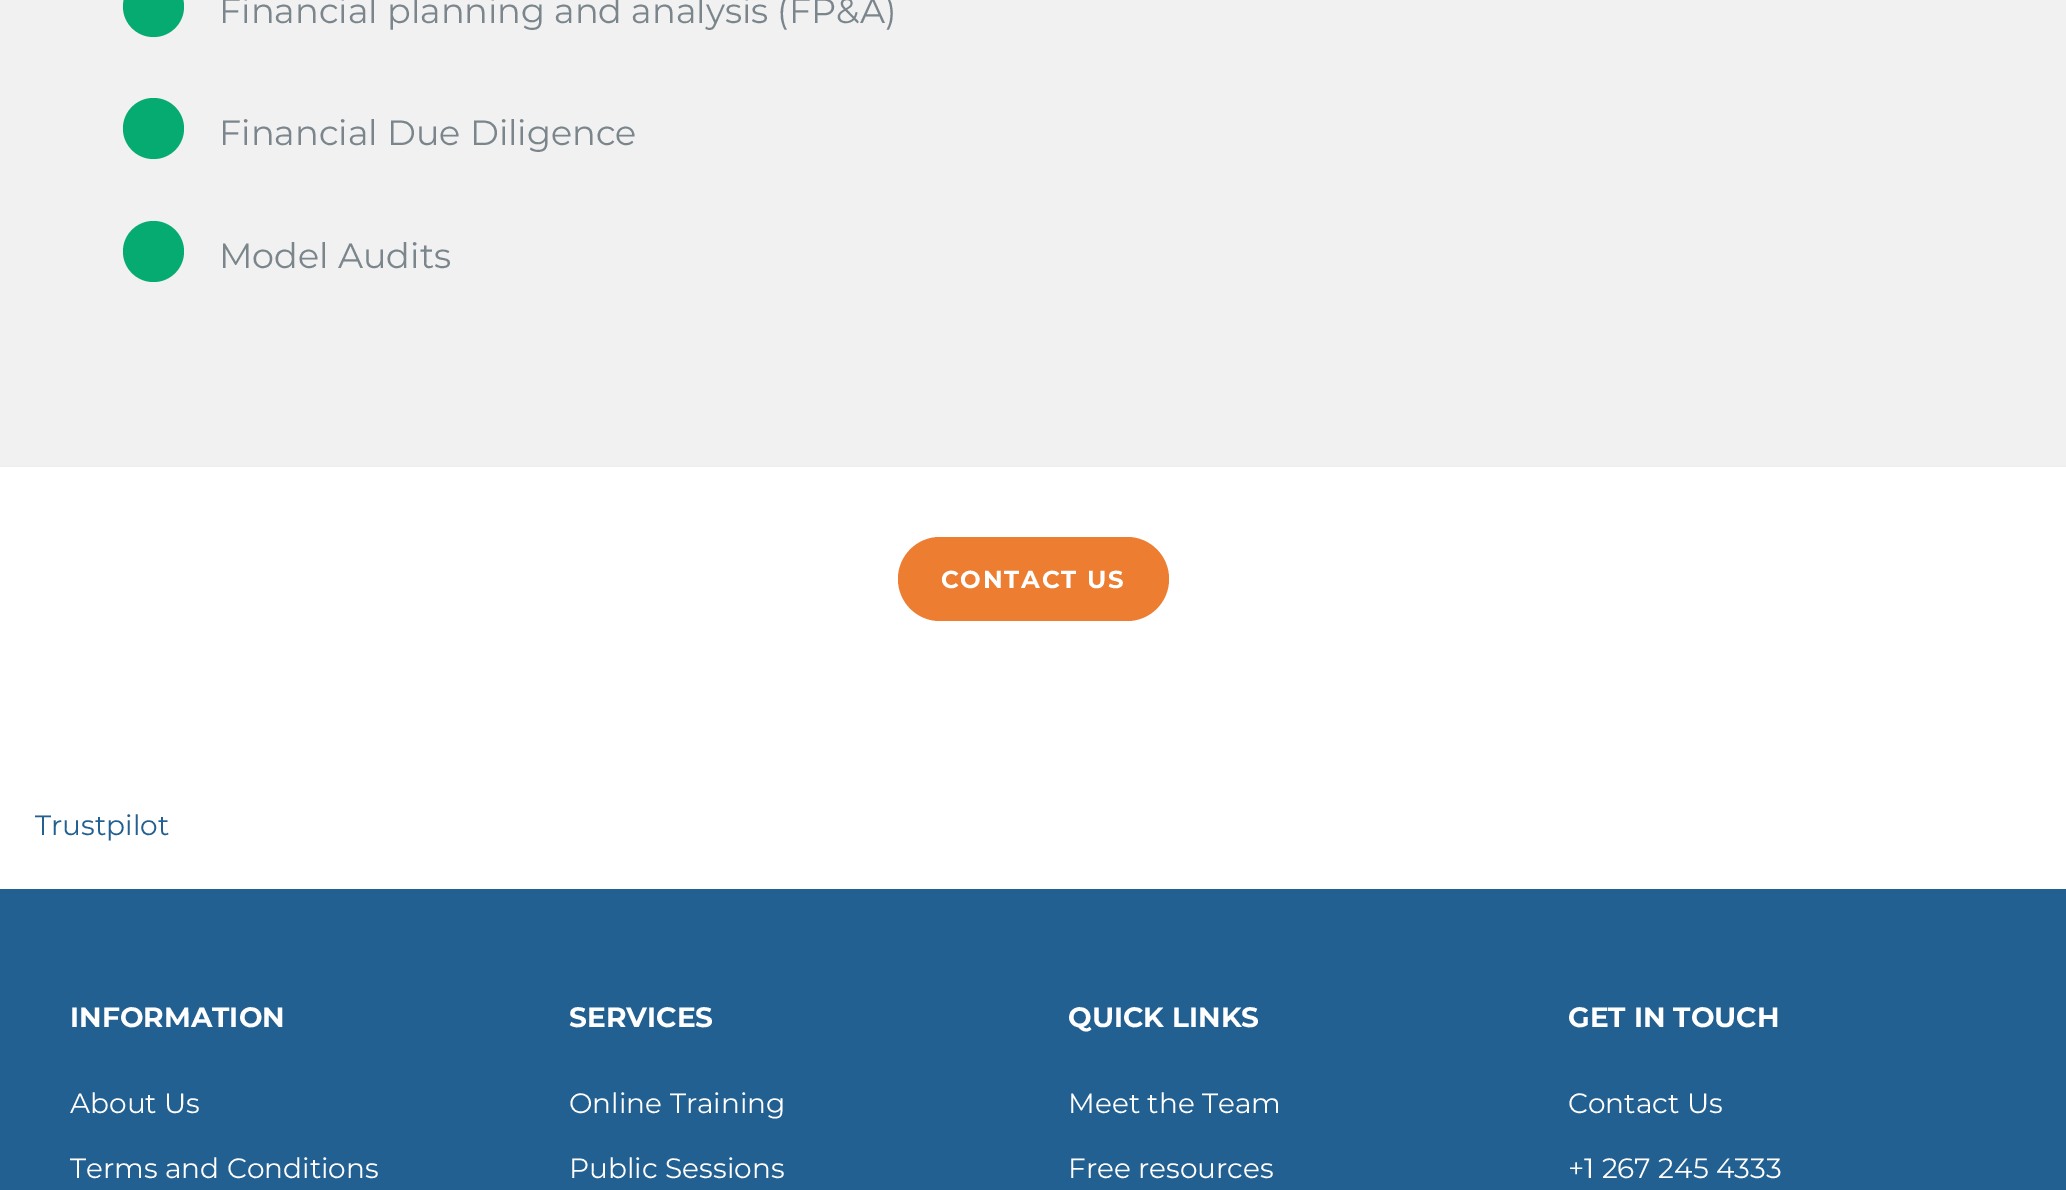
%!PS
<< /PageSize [2066 1190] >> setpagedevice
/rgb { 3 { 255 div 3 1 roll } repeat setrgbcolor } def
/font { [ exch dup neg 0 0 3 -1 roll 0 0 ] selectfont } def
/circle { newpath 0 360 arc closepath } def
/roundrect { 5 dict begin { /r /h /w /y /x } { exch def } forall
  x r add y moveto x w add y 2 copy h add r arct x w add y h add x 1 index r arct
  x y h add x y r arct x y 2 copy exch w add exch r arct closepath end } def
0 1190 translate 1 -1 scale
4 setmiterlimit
255 255 255 rgb
0 0 2066 1190 rectfill
241 241 241 rgb
0 0 2066 466 rectfill
5 171 112 rgb
153.5 6.5 30.5 circle fill
153.5 128.5 30.5 circle fill
153.5 251.5 30.5 circle fill
238 238 238 rgb
0 466 2066 1 rectfill
237 125 49 rgb
898 537 271 84 42 roundrect fill
35 96 146 rgb
0 889 2066 301 rectfill
/Montserrat-Regular 35 font
123 134 140 rgb
[
  [(Financial planning and analysis \(FP&A\)) 219 23]
  [(Financial Due Diligence) 219 145]
  [(Model Audits) 219 268]
] { aload pop moveto show } forall
/Montserrat-Bold 24.5 font
255 255 255 rgb
941 588 moveto 1.75 0 (CONTACT US) ashow
/Montserrat-Regular 28 font
35 96 146 rgb
35 835 moveto (Trustpilot) show
/Montserrat-Bold 28 font
255 255 255 rgb
70 1027 moveto (INFORMATION) show
/Montserrat-Regular 28 font
70 1113 moveto (About Us) show
70 1178 moveto (Terms and Conditions) show
/Montserrat-Bold 28 font
569 1027 moveto (SERVICES) show
/Montserrat-Regular 28 font
569 1113 moveto (Online Training) show
569 1178 moveto (Public Sessions) show
/Montserrat-Bold 28 font
1068 1027 moveto (QUICK LINKS) show
/Montserrat-Regular 28 font
1068 1113 moveto (Meet the Team) show
1068 1178 moveto (Free resources) show
/Montserrat-Bold 28 font
1568 1027 moveto (GET IN TOUCH) show
/Montserrat-Regular 28 font
1568 1113 moveto (Contact Us) show
1568 1178 moveto (+1 267 245 4333) show
showpage
